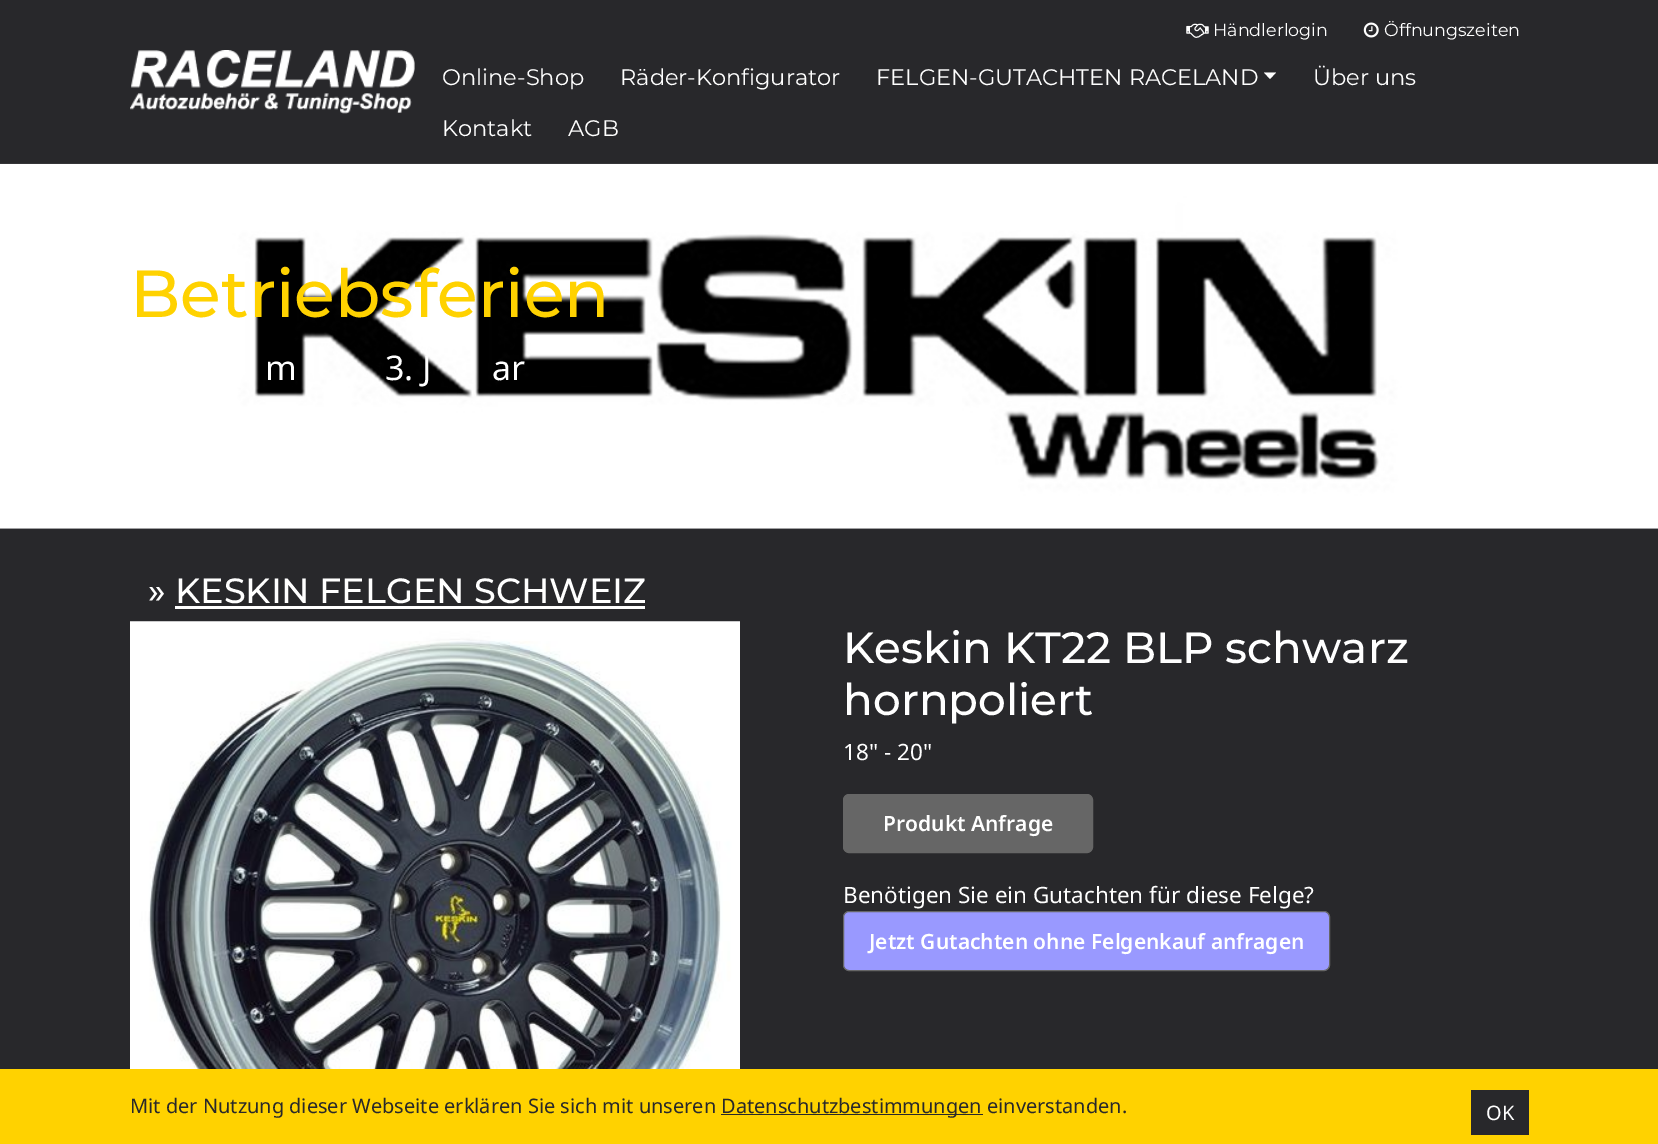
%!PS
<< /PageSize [1658 1144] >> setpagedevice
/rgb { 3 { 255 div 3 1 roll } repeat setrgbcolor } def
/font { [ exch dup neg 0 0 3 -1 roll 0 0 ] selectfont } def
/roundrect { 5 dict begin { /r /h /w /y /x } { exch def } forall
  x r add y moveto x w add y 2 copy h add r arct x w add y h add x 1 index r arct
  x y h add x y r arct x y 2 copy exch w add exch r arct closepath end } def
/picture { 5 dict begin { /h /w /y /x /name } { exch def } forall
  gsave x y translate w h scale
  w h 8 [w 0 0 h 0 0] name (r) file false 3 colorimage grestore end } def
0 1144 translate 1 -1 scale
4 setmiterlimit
40 40 43 rgb
0 0 1658 1144 rectfill
(img/1.rgb) 130 50 285 64 picture
(img/2.rgb) 1186 23 23 15 picture
(img/3.rgb) 1363 22 16 16 picture
255 255 255 rgb
1264 72.5 moveto 1276 72.5 lineto 1270 79 lineto closepath fill
(img/4.rgb) 0 163 1658 366 picture
175 606 470 3 rectfill
(img/5.rgb) 130 621 610 448 picture
102 102 102 rgb
843.5 794.5 249 58 5.5 roundrect gsave fill grestore
stroke
153 153 255 rgb
843.5 911.5 486 59 5.5 roundrect gsave fill grestore
102 102 102 rgb
stroke
[
  [0 1069 1658 75 255 210 0]
  [721 1114 262 1 40 40 43]
  [1471 1090 58 45 40 40 43]
] { aload pop rgb rectfill } forall
/Montserrat-Regular 17.5 font
255 255 255 rgb
1213 36 moveto (Händlerlogin) show
1384 36 moveto (Öffnungszeiten) show
/Montserrat-Regular 22.5 font
[
  [(Online-Shop) 442 85]
  [(Räder-Konfigurator) 620 85]
  [(FELGEN-GUTACHTEN RACELAND) 876 85]
  [(Über uns) 1313 85]
  [(Kontakt) 442 136]
  [(AGB) 568 136]
] { aload pop moveto show } forall
/Montserrat-Medium 66.5 font
255 210 0 rgb
130 317 moveto (Betriebsferien) show
/NotoSans-Regular 34 font
255 255 255 rgb
[
  [(m) 265 380]
  [(3. J) 385 380]
  [(ar) 492 380]
] { aload pop moveto show } forall
/Montserrat-Medium 35 font
148 603 moveto (» KESKIN FELGEN SCHWEIZ) show
/Montserrat-Medium 43.75 font
843 663 moveto (Keskin KT22 BLP schwarz) show
843 715 moveto (hornpoliert) show
/NotoSans-Regular 22.5 font
843 760 moveto (18" - 20") show
/NotoSans-SemiBold 21 font
883 831 moveto (Produkt Anfrage) show
/NotoSans-Regular 22.5 font
843 903 moveto (Benötigen Sie ein Gutachten für diese Felge?) show
/NotoSans-SemiBold 21 font
869 949 moveto (Jetzt Gutachten ohne Felgenkauf anfragen) show
/NotoSans-Regular 20 font
40 40 43 rgb
130 1113 moveto (Mit der Nutzung dieser Webseite erklären Sie sich mit unseren) show
721 1113 moveto (Datenschutzbestimmungen einverstanden.) show
255 255 255 rgb
1486 1120 moveto (OK) show
showpage
